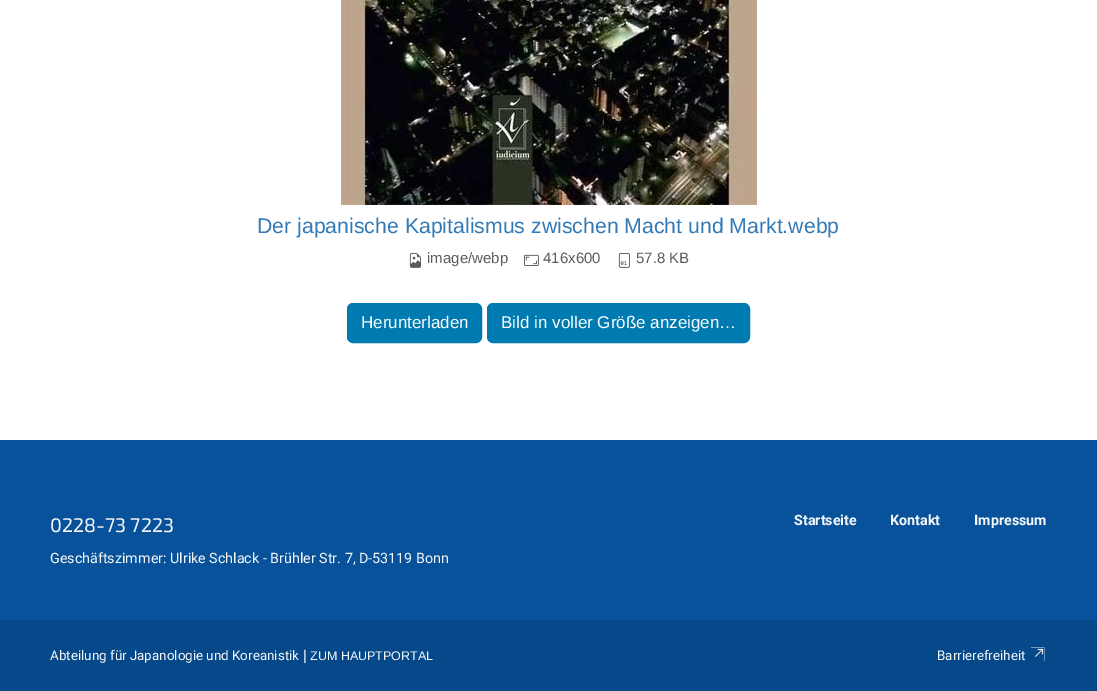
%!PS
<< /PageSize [1097 691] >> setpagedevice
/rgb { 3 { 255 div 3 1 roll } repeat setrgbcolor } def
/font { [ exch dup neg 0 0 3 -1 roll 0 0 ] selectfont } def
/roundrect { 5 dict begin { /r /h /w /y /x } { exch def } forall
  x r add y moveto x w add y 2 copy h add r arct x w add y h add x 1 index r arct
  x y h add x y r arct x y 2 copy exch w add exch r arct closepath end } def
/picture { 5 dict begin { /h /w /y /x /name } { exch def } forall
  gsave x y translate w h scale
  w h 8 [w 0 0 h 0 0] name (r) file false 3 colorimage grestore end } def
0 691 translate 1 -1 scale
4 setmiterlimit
255 255 255 rgb
0 0 1097 691 rectfill
(img/1.rgb) 341 0 416 205 picture
(img/2.rgb) 409 253 12 15 picture
(img/3.rgb) 524 254 15 12 picture
(img/4.rgb) 618 253 12 15 picture
0 123 177 rgb
347.5 303.5 134 39 5.5 roundrect gsave fill grestore
stroke
487.5 303.5 262 39 5.5 roundrect gsave fill grestore
stroke
7 82 154 rgb
0 440 1097 180 rectfill
6 73 138 rgb
0 620 1097 71 rectfill
(img/5.rgb) 1031 647 14 14 picture
/LiberationSans-Regular 21.25 font
51 122 183 rgb
257 233 moveto (Der japanische Kapitalismus zwischen Macht und Markt.webp) show
/LiberationSans-Regular 15 font
89 92 95 rgb
[
  [(image/webp) 427 263]
  [(416x600) 543 263]
  [(57.8 KB) 636 263]
] { aload pop moveto show } forall
/LiberationSans-Regular 17 font
255 255 255 rgb
361 328 moveto (Herunterladen) show
501 328 moveto (Bild in voller Größe anzeigen…) show
/Exo2-Regular 19.75 font
246 247 249 rgb
50 532 moveto (0228-73 7223) show
/Roboto-Regular 14.3 font
50 563 moveto (Geschäftszimmer: Ulrike Schlack - Brühler Str. 7, D-53119 Bonn) show
/Roboto-Bold 14.3 font
[
  [(Startseite) 794 525]
  [(Kontakt) 890 525]
  [(Impressum) 974 525]
] { aload pop moveto show } forall
/Roboto-Regular 13.4 font
50 660 moveto (Abteilung für Japanologie und Koreanistik) show
/LiberationSans-Regular 14 font
303 660 moveto (|) show
/LiberationSans-Regular 12.5 font
310 660 moveto (ZUM HAUPTPORTAL) show
/Roboto-Regular 13.4 font
937 660 moveto (Barrierefreiheit) show
showpage
